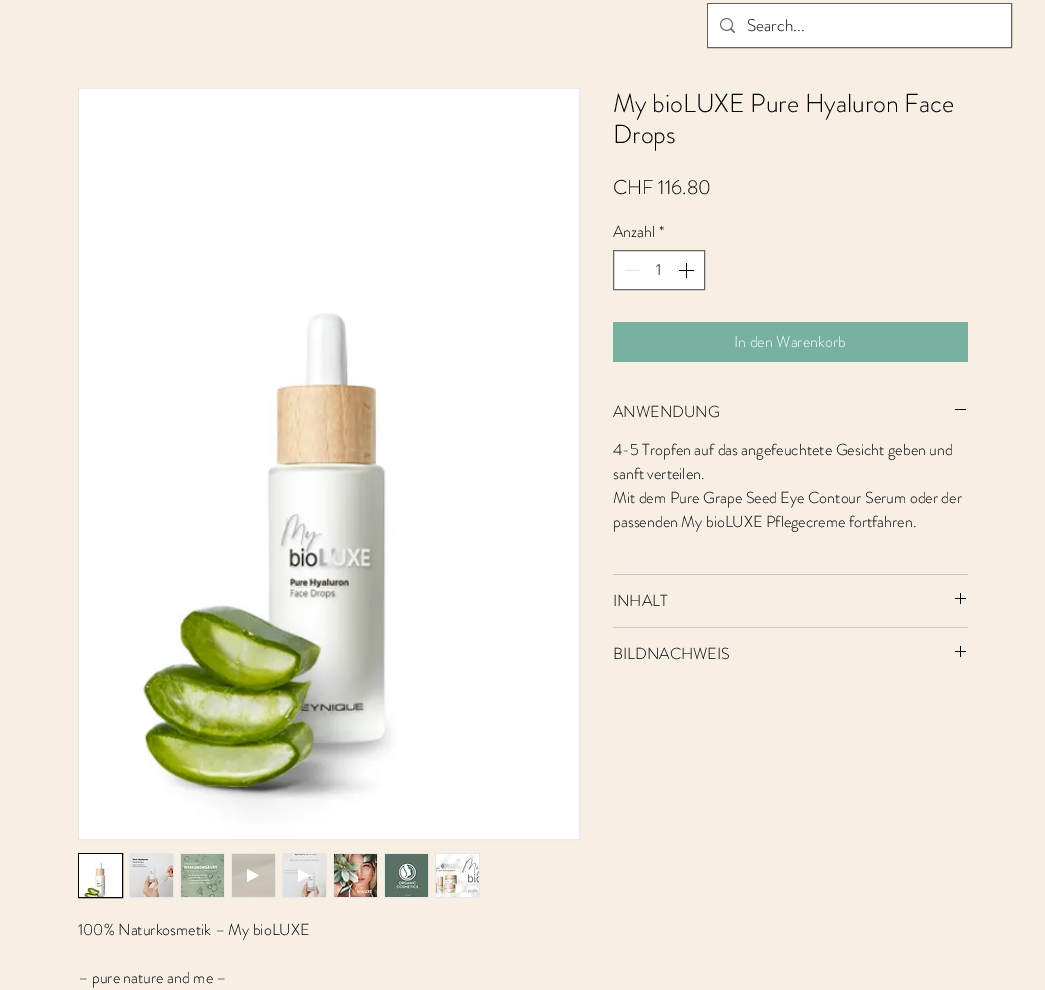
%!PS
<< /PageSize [1045 990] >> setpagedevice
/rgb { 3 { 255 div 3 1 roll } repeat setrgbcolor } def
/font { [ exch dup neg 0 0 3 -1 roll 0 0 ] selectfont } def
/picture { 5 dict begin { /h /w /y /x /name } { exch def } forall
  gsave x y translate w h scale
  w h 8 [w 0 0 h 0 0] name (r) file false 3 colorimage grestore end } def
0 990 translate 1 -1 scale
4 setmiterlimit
247 239 228 rgb
0 0 1045 990 rectfill
99 96 91 rgb
707.5 3.5 304 44 rectstroke
255 255 255 rgb
708 4 303 43 rectfill
(img/1.rgb) 720 18 15 15 picture
613.5 250.5 moveto 704.5 250.5 lineto 704.5 289.5 lineto 613.5 289.5 lineto closepath gsave fill grestore
102 102 102 rgb
stroke
227 227 227 rgb
625 270 15 1 rectfill
(img/2.rgb) 679 263 15 15 picture
[
  [613 322 355 40 120 177 160]
  [613 574 355 1 199 199 199]
  [955 409 11 1 0 0 0]
  [613 627 355 1 199 199 199]
] { aload pop rgb rectfill } forall
(img/3.rgb) 955 593 11 11 picture
(img/3.rgb) 955 646 11 11 picture
232 230 230 rgb
78.5 88.5 501 751 rectstroke
(img/4.rgb) 79 89 500 750 picture
0 0 0 rgb
78.5 853.5 44 44 rectstroke
(img/5.rgb) 79 854 43 43 picture
232 230 230 rgb
129 853 45 45 rectfill
(img/6.rgb) 130 854 43 43 picture
180 853 45 45 rectfill
(img/7.rgb) 181 854 43 43 picture
231 853 45 45 rectfill
(img/8.rgb) 232 854 43 43 picture
282 853 45 45 rectfill
(img/9.rgb) 283 854 43 43 picture
255 255 255 rgb
247 869 moveto 247 882 lineto 259 875.5 lineto closepath 298 869 moveto 298 882 lineto 310 875.5 lineto closepath fill
232 230 230 rgb
333 853 45 45 rectfill
(img/10.rgb) 334 854 43 43 picture
384 853 45 45 rectfill
(img/11.rgb) 385 854 43 43 picture
435 853 45 45 rectfill
(img/12.rgb) 436 854 43 43 picture
/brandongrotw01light-Light 17 font
0 0 0 rgb
747 31 moveto (Search...) show
/brandongrotw01light-Light 26 font
613 112 moveto (My bioLUXE Pure Hyaluron Face) show
613 143 moveto (Drops) show
/brandongrotw01light-Light 20 font
613 194 moveto (CHF 116.80) show
/brandongrotw01light-Light 16 font
[
  [(Anzahl) 613 237]
  [(*) 659 237]
  [(1) 656 275]
] { aload pop moveto show } forall
255 255 255 rgb
734 347 moveto (In den Warenkorb) show
0 0 0 rgb
[
  [(ANWENDUNG) 613 417]
  [(4-5 Tropfen auf das angefeuchtete Gesicht geben und) 613 455]
  [(sanft verteilen.) 613 479]
  [(Mit dem Pure Grape Seed Eye Contour Serum oder der) 613 503]
  [(passenden My bioLUXE Pflegecreme fortfahren.) 613 527]
  [(INHALT) 613 606]
  [(BILDNACHWEIS) 613 659]
  [(100% Naturkosmetik – My bioLUXE) 78 935]
  [(– pure nature and me –) 78 983]
] { aload pop moveto show } forall
showpage
